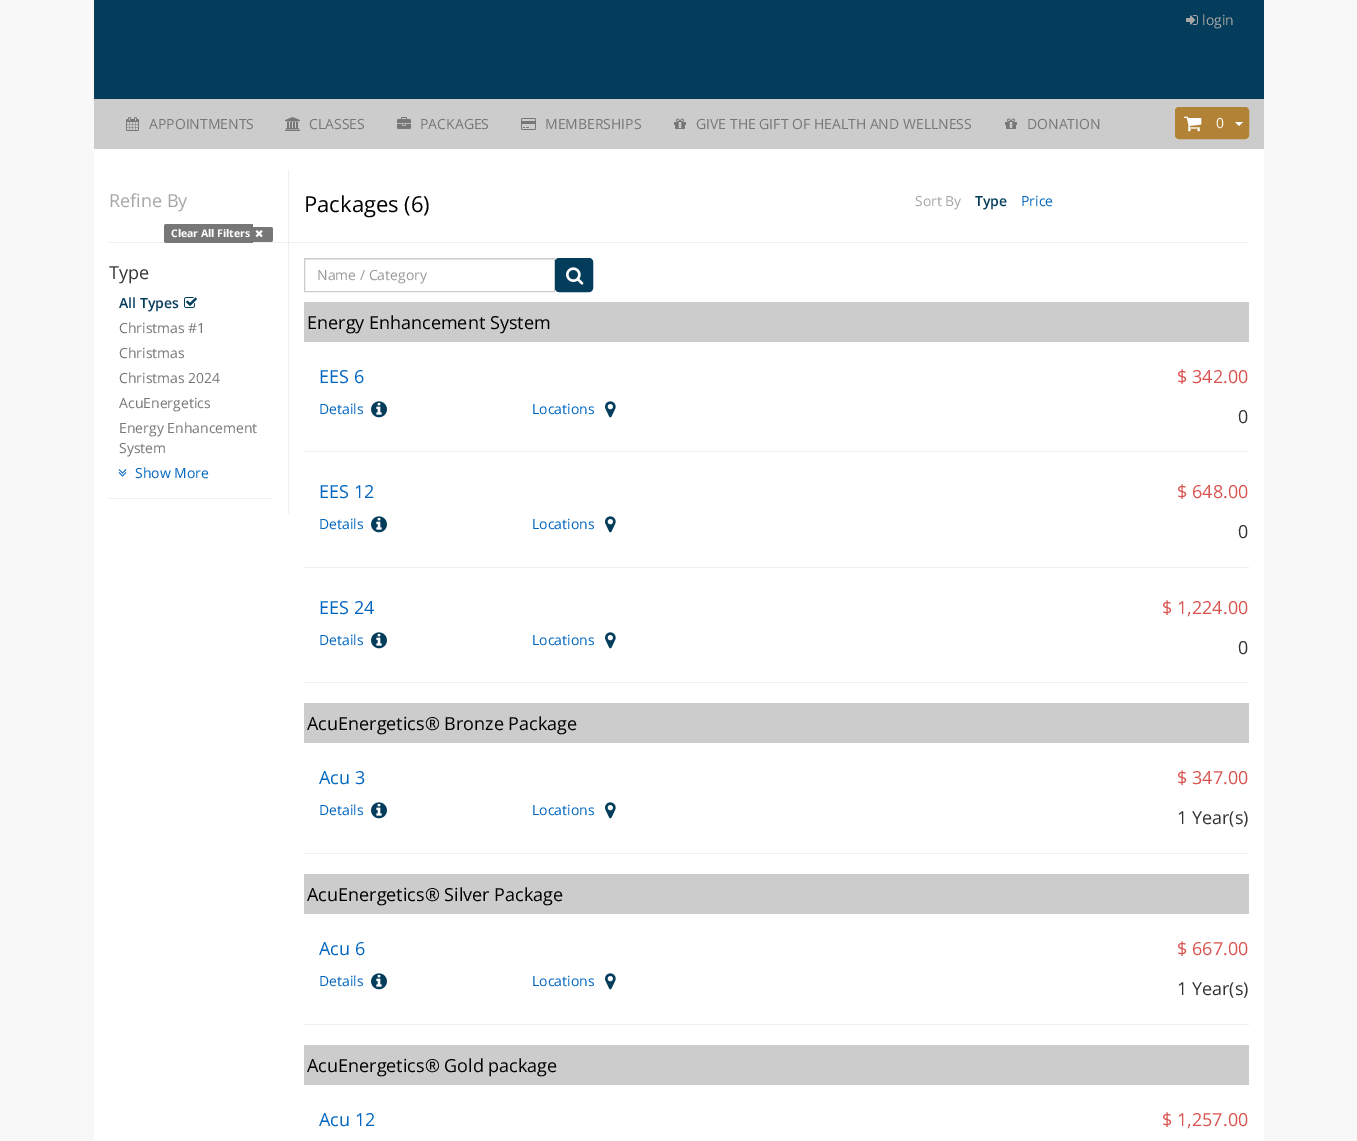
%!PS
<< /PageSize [1357 1141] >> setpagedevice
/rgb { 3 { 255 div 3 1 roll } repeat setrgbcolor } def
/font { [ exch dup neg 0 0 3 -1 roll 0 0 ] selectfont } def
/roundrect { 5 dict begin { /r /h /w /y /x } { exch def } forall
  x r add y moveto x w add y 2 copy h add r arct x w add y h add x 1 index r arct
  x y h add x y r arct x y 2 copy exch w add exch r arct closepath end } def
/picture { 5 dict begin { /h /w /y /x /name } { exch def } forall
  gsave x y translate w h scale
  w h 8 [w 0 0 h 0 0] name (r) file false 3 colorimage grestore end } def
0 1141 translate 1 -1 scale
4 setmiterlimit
248 248 248 rgb
0 0 1357 1141 rectfill
4 60 92 rgb
94 0 1170 99 rectfill
(img/1.rgb) 1186 15 12 10 picture
204 204 204 rgb
94 99 1170 50 rectfill
(img/2.rgb) 126 117 13 14 picture
(img/3.rgb) 285 117 15 14 picture
(img/4.rgb) 397 117 14 12 picture
(img/5.rgb) 521 118 15 12 picture
(img/6.rgb) 674 118 12 11 picture
(img/6.rgb) 1005 118 12 11 picture
178 131 54 rgb
1175.5 107.5 73 31 3.5 roundrect gsave fill grestore
stroke
(img/7.rgb) 1184 116 18 16 picture
255 255 255 rgb
1235 122 moveto 1243 122 lineto 1239 126 lineto closepath fill
[
  [94 149 1170 992 255 255 255]
  [288 170 1 72 238 238 238]
  [109 242 1140 1 238 238 238]
] { aload pop rgb rectfill } forall
119 119 119 rgb
166.5 224 moveto 253 224 lineto 253 243 lineto 166.5 243 lineto 165 243 164 242 164 240.5 curveto 164 226.5 lineto 164 225 165 224 166.5 224 curveto closepath fill
253 227 moveto 270.5 227 lineto 272 227 273 228 273 229.5 curveto 273 239.5 lineto 273 241 272 242 270.5 242 curveto 253 242 lineto closepath fill
(img/8.rgb) 255 230 8 7 picture
238 238 238 rgb
288 243 1 271 rectfill
(img/9.rgb) 184 297 13 11 picture
(img/10.rgb) 118 469 9 8 picture
109 498 164 1 rectfill
236 236 236 rgb
305 259 249 1 rectfill
204 204 204 rgb
304.5 258.5 250 33 rectstroke
4 60 92 rgb
555.5 258.5 37 33 3.5 roundrect gsave fill grestore
stroke
(img/11.rgb) 566 267 18 18 picture
204 204 204 rgb
304 302 945 40 rectfill
(img/12.rgb) 371 401 16 17 picture
(img/13.rgb) 605 401 11 17 picture
238 238 238 rgb
304 451 945 1 rectfill
(img/12.rgb) 371 516 16 17 picture
(img/13.rgb) 605 516 11 17 picture
304 567 945 1 rectfill
(img/12.rgb) 371 632 16 17 picture
(img/13.rgb) 605 632 11 17 picture
304 682 945 1 rectfill
204 204 204 rgb
304 703 945 40 rectfill
(img/12.rgb) 371 802 16 17 picture
(img/13.rgb) 605 802 11 17 picture
238 238 238 rgb
304 853 945 1 rectfill
204 204 204 rgb
304 874 945 40 rectfill
(img/12.rgb) 371 973 16 17 picture
(img/13.rgb) 605 973 11 17 picture
238 238 238 rgb
304 1024 945 1 rectfill
204 204 204 rgb
304 1045 945 40 rectfill
/OpenSans-Regular 14 font
166 166 166 rgb
1202 25 moveto (login) show
119 119 119 rgb
[
  [(APPOINTMENTS) 149 129]
  [(CLASSES) 309 129]
  [(PACKAGES) 420 129]
  [(MEMBERSHIPS) 545 129]
  [(GIVE THE GIFT OF HEALTH AND WELLNESS) 696 129]
  [(DONATION) 1027 129]
] { aload pop moveto show } forall
255 255 255 rgb
1216 128 moveto (0) show
/OpenSans-Regular 18 font
166 166 166 rgb
109 207 moveto (Refine By) show
/OpenSans-Bold 10.5 font
255 255 255 rgb
171 237 moveto (Clear All Filters) show
/OpenSans-Regular 22 font
0 0 0 rgb
304 212 moveto (Packages \(6\)) show
/OpenSans-Regular 14 font
166 166 166 rgb
915 206 moveto (Sort By) show
/OpenSans-SemiBold 14 font
4 60 92 rgb
975 206 moveto (Type) show
/OpenSans-Regular 14 font
0 102 192 rgb
1021 206 moveto (Price) show
/OpenSans-Regular 18 font
51 51 51 rgb
109 279 moveto (Type) show
/OpenSans-SemiBold 14 font
4 60 92 rgb
119 308 moveto (All Types) show
/OpenSans-Regular 14 font
119 119 119 rgb
[
  [(Christmas #1) 119 333]
  [(Christmas) 119 358]
  [(Christmas 2024) 119 383]
  [(AcuEnergetics) 119 408]
  [(Energy Enhancement) 119 433]
  [(System) 119 453]
] { aload pop moveto show } forall
0 102 192 rgb
135 478 moveto (Show More) show
153 153 153 rgb
317 280 moveto (Name / Category) show
/OpenSans-Regular 18 font
0 0 0 rgb
307 329 moveto (Energy Enhancement System) show
0 102 192 rgb
319 383 moveto (EES 6) show
217 83 79 rgb
1177 383 moveto ($ 342.00) show
/OpenSans-Regular 14 font
0 102 192 rgb
319 414 moveto (Details) show
532 414 moveto (Locations) show
/OpenSans-Regular 18 font
51 51 51 rgb
1238 423 moveto (0) show
0 102 192 rgb
319 498 moveto (EES 12) show
217 83 79 rgb
1177 498 moveto ($ 648.00) show
/OpenSans-Regular 14 font
0 102 192 rgb
319 529 moveto (Details) show
532 529 moveto (Locations) show
/OpenSans-Regular 18 font
51 51 51 rgb
1238 538 moveto (0) show
0 102 192 rgb
319 614 moveto (EES 24) show
217 83 79 rgb
1162 614 moveto ($ 1,224.00) show
/OpenSans-Regular 14 font
0 102 192 rgb
319 645 moveto (Details) show
532 645 moveto (Locations) show
/OpenSans-Regular 18 font
51 51 51 rgb
1238 654 moveto (0) show
0 0 0 rgb
307 730 moveto (AcuEnergetics® Bronze Package) show
0 102 192 rgb
319 784 moveto (Acu 3) show
217 83 79 rgb
1177 784 moveto ($ 347.00) show
/OpenSans-Regular 14 font
0 102 192 rgb
319 815 moveto (Details) show
532 815 moveto (Locations) show
/OpenSans-Regular 18 font
51 51 51 rgb
1177 824 moveto (1 Year\(s\)) show
0 0 0 rgb
307 901 moveto (AcuEnergetics® Silver Package) show
0 102 192 rgb
319 955 moveto (Acu 6) show
217 83 79 rgb
1177 955 moveto ($ 667.00) show
/OpenSans-Regular 14 font
0 102 192 rgb
319 986 moveto (Details) show
532 986 moveto (Locations) show
/OpenSans-Regular 18 font
51 51 51 rgb
1177 995 moveto (1 Year\(s\)) show
0 0 0 rgb
307 1072 moveto (AcuEnergetics® Gold package) show
0 102 192 rgb
319 1126 moveto (Acu 12) show
217 83 79 rgb
1162 1126 moveto ($ 1,257.00) show
showpage
